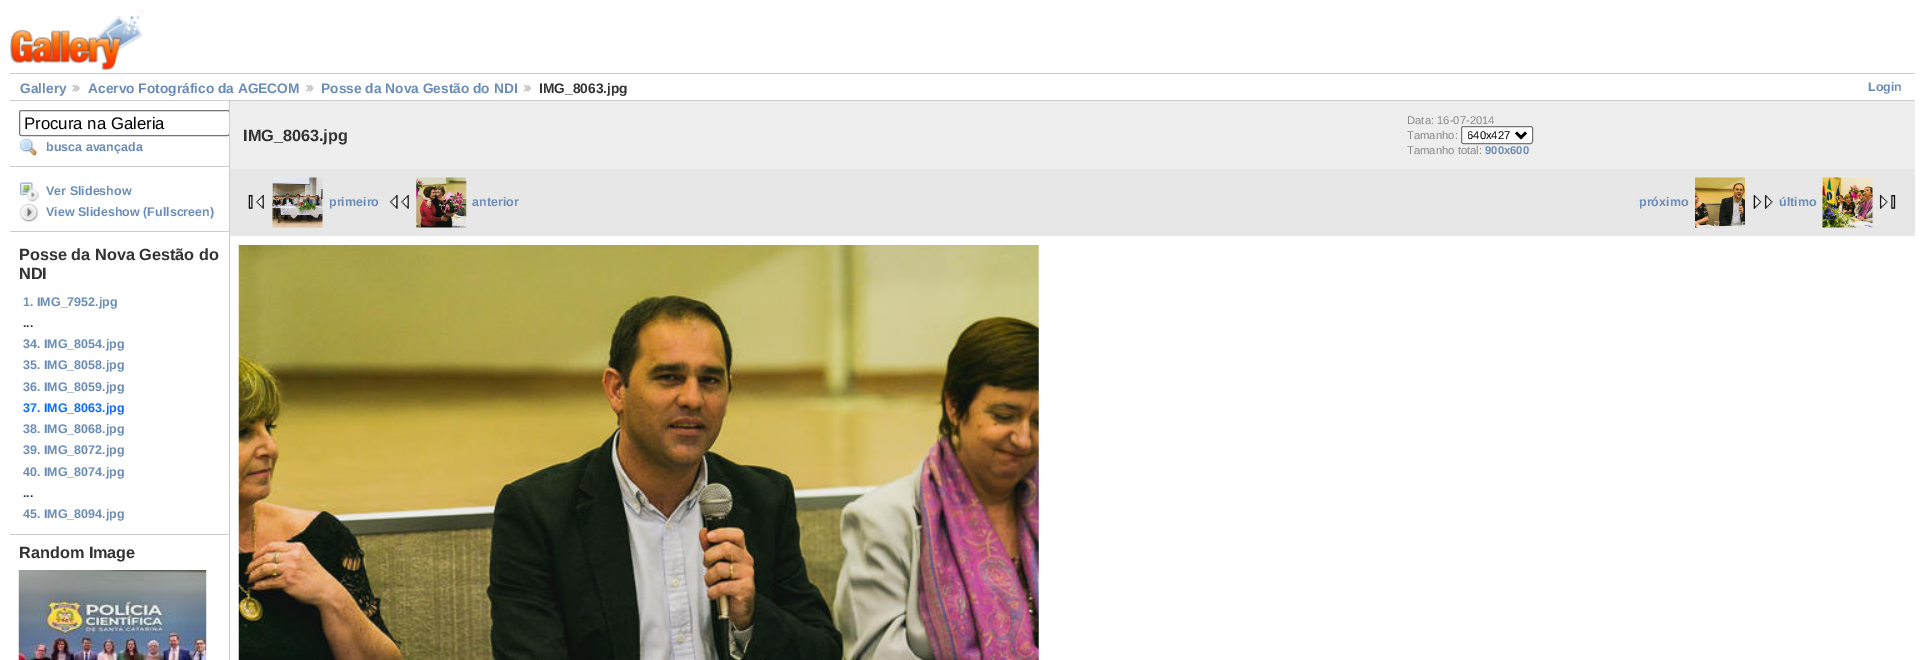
%!PS
<< /PageSize [1925 660] >> setpagedevice
/rgb { 3 { 255 div 3 1 roll } repeat setrgbcolor } def
/font { [ exch dup neg 0 0 3 -1 roll 0 0 ] selectfont } def
/roundrect { 5 dict begin { /r /h /w /y /x } { exch def } forall
  x r add y moveto x w add y 2 copy h add r arct x w add y h add x 1 index r arct
  x y h add x y r arct x y 2 copy exch w add exch r arct closepath end } def
/picture { 5 dict begin { /h /w /y /x /name } { exch def } forall
  gsave x y translate w h scale
  w h 8 [w 0 0 h 0 0] name (r) file false 3 colorimage grestore end } def
0 660 translate 1 -1 scale
4 setmiterlimit
255 255 255 rgb
0 0 1925 660 rectfill
(img/1.rgb) 10 10 134 60 picture
204 204 204 rgb
10 73 1905 1 rectfill
10 100 1905 1 rectfill
(img/2.rgb) 72 85 8 7 picture
(img/3.rgb) 306 85 8 7 picture
(img/4.rgb) 523 85 9 7 picture
229 101 1 559 rectfill
10 166 219 1 rectfill
gsave
10 101 219 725 rectclip
118 118 118 rgb
19.5 110.5 210 25 2 roundrect stroke
grestore
(img/5.rgb) 19 138 18 19 picture
10 231 219 1 rectfill
(img/6.rgb) 19 182 20 20 picture
(img/7.rgb) 20 203 18 19 picture
10 534 219 1 rectfill
(img/8.rgb) 18 570 189 90 picture
238 238 238 rgb
230 101 1685 68 rectfill
255 255 255 rgb
1461.5 126.5 71 17 2 roundrect gsave fill grestore
118 118 118 rgb
stroke
0 0 0 rgb
2.5 setlinewidth
1516 132.5 moveto 1521 137.5 lineto 1526 132.5 lineto stroke
231 231 231 rgb
230 169 1685 67 rectfill
(img/9.rgb) 248 195 16 14 picture
(img/10.rgb) 272 177 51 51 picture
(img/11.rgb) 389 195 20 14 picture
(img/12.rgb) 416 177 51 51 picture
(img/13.rgb) 1695 177 50 51 picture
(img/14.rgb) 1753 195 20 14 picture
(img/15.rgb) 1822 177 51 51 picture
(img/16.rgb) 1879 195 17 14 picture
(img/17.rgb) 238 245 801 415 picture
/LiberationSans-Bold 13.75 font
107 140 183 rgb
[
  [(Gallery) 20 93]
  [(Acervo Fotográfico da AGECOM) 88 93]
  [(Posse da Nova Gestão do NDI) 321 93]
] { aload pop moveto show } forall
51 51 51 rgb
539 93 moveto (IMG_8063.jpg) show
/LiberationSans-Bold 12.5 font
107 140 183 rgb
1868 91 moveto (Login) show
/LiberationSans-Regular 16.75 font
0 0 0 rgb
24 129 moveto (Procura na Galeria) show
/LiberationSans-Bold 12.5 font
107 140 183 rgb
[
  [(busca avançada) 46 151]
  [(Ver Slideshow) 46 195]
  [(View Slideshow \(Fullscreen\)) 46 216]
] { aload pop moveto show } forall
/LiberationSans-Bold 16.25 font
51 51 51 rgb
19 260 moveto (Posse da Nova Gestão do) show
19 279 moveto (NDI) show
/LiberationSans-Bold 12.5 font
107 140 183 rgb
23 306 moveto (1. IMG_7952.jpg) show
51 51 51 rgb
23 327 moveto (...) show
107 140 183 rgb
[
  [(34. IMG_8054.jpg) 23 348]
  [(35. IMG_8058.jpg) 23 369]
  [(36. IMG_8059.jpg) 23 391]
] { aload pop moveto show } forall
11 108 255 rgb
23 412 moveto (37. IMG_8063.jpg) show
107 140 183 rgb
[
  [(38. IMG_8068.jpg) 23 433]
  [(39. IMG_8072.jpg) 23 454]
  [(40. IMG_8074.jpg) 23 476]
] { aload pop moveto show } forall
51 51 51 rgb
23 497 moveto (...) show
107 140 183 rgb
23 518 moveto (45. IMG_8094.jpg) show
/LiberationSans-Bold 16.25 font
51 51 51 rgb
19 558 moveto (Random Image) show
243 141 moveto (IMG_8063.jpg) show
/LiberationSans-Regular 11.25 font
136 136 136 rgb
1407 124 moveto (Data: 16-07-2014) show
1407 139 moveto (Tamanho:) show
gsave
1468 128 43 15 rectclip
0 0 0 rgb
1467 139 moveto (640x427) show
grestore
1407 154 moveto (Tamanho total:) show
/LiberationSans-Bold 11.25 font
107 140 183 rgb
1485 154 moveto (900x600) show
/LiberationSans-Bold 12.5 font
[
  [(primeiro) 329 206]
  [(anterior) 472 206]
  [(próximo) 1639 206]
  [(último) 1779 206]
] { aload pop moveto show } forall
showpage
